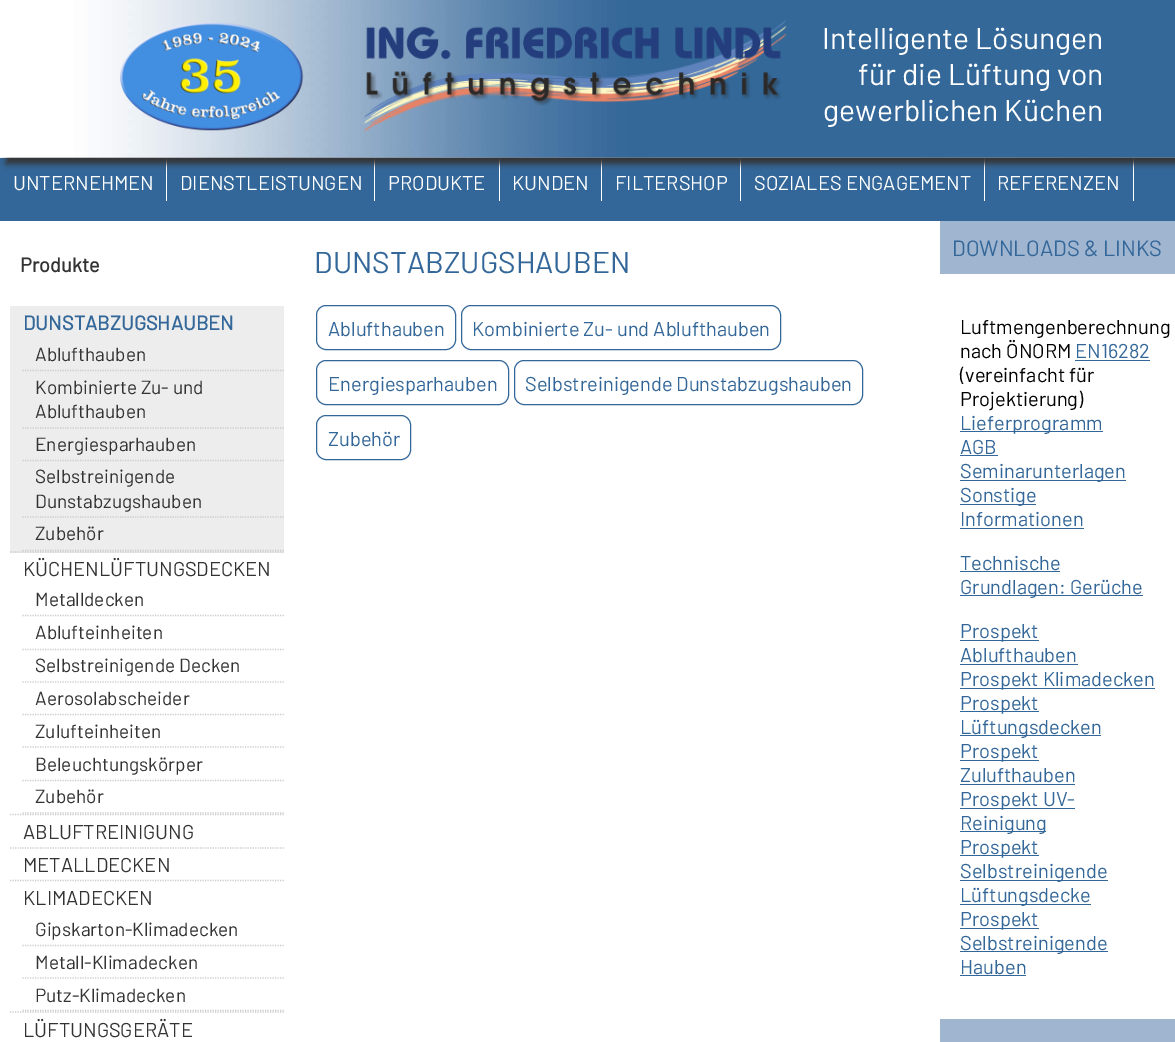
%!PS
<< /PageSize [1175 1042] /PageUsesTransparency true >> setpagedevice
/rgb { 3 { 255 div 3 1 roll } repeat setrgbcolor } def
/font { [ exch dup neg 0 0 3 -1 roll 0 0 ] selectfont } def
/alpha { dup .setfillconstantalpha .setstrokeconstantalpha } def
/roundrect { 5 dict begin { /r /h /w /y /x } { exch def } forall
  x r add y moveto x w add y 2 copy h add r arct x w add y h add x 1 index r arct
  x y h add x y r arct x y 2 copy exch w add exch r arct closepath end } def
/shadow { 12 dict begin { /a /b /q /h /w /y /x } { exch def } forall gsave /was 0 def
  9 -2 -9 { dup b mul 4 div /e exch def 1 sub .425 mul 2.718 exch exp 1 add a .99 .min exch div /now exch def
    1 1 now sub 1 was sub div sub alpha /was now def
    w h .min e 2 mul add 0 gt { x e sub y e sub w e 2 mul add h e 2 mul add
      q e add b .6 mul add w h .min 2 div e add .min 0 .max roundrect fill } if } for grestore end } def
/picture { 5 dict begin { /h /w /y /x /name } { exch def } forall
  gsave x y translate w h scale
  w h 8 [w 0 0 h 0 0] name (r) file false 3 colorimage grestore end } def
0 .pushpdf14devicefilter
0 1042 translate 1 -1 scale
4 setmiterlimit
255 255 255 rgb
0 0 1175 1042 rectfill
(img/1.rgb) 0 157 1175 1 picture
[
  [0 158 1175 63 52 103 153]
  [166 158 1 43 255 255 255]
  [374 158 1 43 255 255 255]
  [499 158 1 43 255 255 255]
  [601 158 1 43 255 255 255]
  [740 158 1 43 255 255 255]
  [984 158 1 43 255 255 255]
  [1133 158 1 43 255 255 255]
] { aload pop rgb rectfill } forall
51 51 51 rgb
6 6 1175 158 0 3 1 shadow
(img/2.rgb) 0 0 1175 158 picture
(img/3.rgb) 120 22 184 109 picture
(img/4.rgb) 363 20 424 112 picture
237 237 237 rgb
10 306 274 247 rectfill
204 204 204 rgb
1.2 setlinewidth
[1.25 1.25] 0 setdash
10 552 moveto 284 552 lineto stroke
22.5 370.5 moveto 284 370.5 lineto stroke
22.5 428 moveto 284 428 lineto stroke
22.5 460.5 moveto 284 460.5 lineto stroke
22.5 517 moveto 284 517 lineto stroke
22.5 550.5 moveto 284 550.5 lineto stroke
10 814.5 moveto 284 814.5 lineto stroke
22.5 615.5 moveto 284 615.5 lineto stroke
22.5 649.5 moveto 284 649.5 lineto stroke
22.5 682 moveto 284 682 lineto stroke
22.5 714.5 moveto 284 714.5 lineto stroke
22.5 747 moveto 284 747 lineto stroke
22.5 780.5 moveto 284 780.5 lineto stroke
22.5 813 moveto 284 813 lineto stroke
10 848 moveto 284 848 lineto stroke
10 880.5 moveto 284 880.5 lineto stroke
10 1012 moveto 284 1012 lineto stroke
22.5 945.5 moveto 284 945.5 lineto stroke
22.5 978 moveto 284 978 lineto stroke
22.5 1010.5 moveto 284 1010.5 lineto stroke
52 103 153 rgb
1 setlinewidth
[] 0 setdash
316.5 305.5 139 44 9.5 roundrect stroke
461.5 305.5 319 44 9.5 roundrect stroke
316.5 360.5 192 44 9.5 roundrect stroke
514.5 360.5 348 44 9.5 roundrect stroke
316.5 415.5 94 44 9.5 roundrect stroke
[
  [940 221 235 53 160 181 208]
  [1075 360 75 1 52 103 153]
  [960 431 143 1 52 103 153]
  [960 455 38 1 52 103 153]
  [960 480 166 1 52 103 153]
  [960 504 76 1 52 103 153]
  [960 528 124 1 52 103 153]
  [960 571 100 1 52 103 153]
  [960 595 183 1 52 103 153]
  [960 640 79 1 52 103 153]
  [960 664 118 1 52 103 153]
  [960 688 195 1 52 103 153]
  [960 711 79 1 52 103 153]
  [960 735 141 1 52 103 153]
  [960 760 79 1 52 103 153]
  [960 784 115 1 52 103 153]
  [960 808 115 1 52 103 153]
  [960 831 86 1 52 103 153]
  [960 855 79 1 52 103 153]
  [960 880 148 1 52 103 153]
  [960 904 131 1 52 103 153]
  [960 928 79 1 52 103 153]
  [960 951 148 1 52 103 153]
  [960 975 66 1 52 103 153]
  [940 1019 235 23 160 181 208]
] { aload pop rgb rectfill } forall
/Barlow-Regular 30 font
255 255 255 rgb
[
  [(Intelligente Lösungen) 822 49]
  [(für die Lüftung von) 858 85]
  [(gewerblichen Küchen) 823 121]
] { aload pop moveto show } forall
/Barlow-Regular 20 font
[
  [(UNTERNEHMEN) 13 190]
  [(DIENSTLEISTUNGEN) 180 190]
  [(PRODUKTE) 388 190]
  [(KUNDEN) 512 190]
  [(FILTERSHOP) 615 190]
  [(SOZIALES ENGAGEMENT) 754 190]
  [(REFERENZEN) 997 190]
] { aload pop moveto show } forall
/Barlow-Bold 20 font
51 51 51 rgb
20 272 moveto (Produkte) show
52 103 153 rgb
23 330 moveto (DUNSTABZUGSHAUBEN) show
/Barlow-Regular 19 font
51 51 51 rgb
[
  [(Ablufthauben) 35 361]
  [(Kombinierte Zu- und) 35 394]
  [(Ablufthauben) 35 418]
  [(Energiesparhauben) 35 451]
  [(Selbstreinigende) 35 483]
  [(Dunstabzugshauben) 35 508]
  [(Zubehör) 35 540]
] { aload pop moveto show } forall
/Barlow-Regular 20 font
23 576 moveto (KÜCHENLÜFTUNGSDECKEN) show
/Barlow-Regular 19 font
[
  [(Metalldecken) 35 606]
  [(Ablufteinheiten) 35 639]
  [(Selbstreinigende Decken) 35 672]
  [(Aerosolabscheider) 35 705]
  [(Zulufteinheiten) 35 738]
  [(Beleuchtungskörper) 35 771]
  [(Zubehör) 35 803]
] { aload pop moveto show } forall
/Barlow-Regular 20 font
[
  [(ABLUFTREINIGUNG) 23 839]
  [(METALLDECKEN) 23 872]
  [(KLIMADECKEN) 23 905]
] { aload pop moveto show } forall
/Barlow-Regular 19 font
[
  [(Gipskarton-Klimadecken) 35 936]
  [(Metall-Klimadecken) 35 969]
  [(Putz-Klimadecken) 35 1002]
] { aload pop moveto show } forall
/Barlow-Regular 20 font
23 1037 moveto (LÜFTUNGSGERÄTE) show
/Barlow-Regular 30 font
52 103 153 rgb
314 273 moveto (DUNSTABZUGSHAUBEN) show
/Barlow-Regular 20 font
[
  [(Ablufthauben) 328 336]
  [(Kombinierte Zu- und Ablufthauben) 472 336]
  [(Energiesparhauben) 328 391]
  [(Selbstreinigende Dunstabzugshauben) 525 391]
  [(Zubehör) 328 446]
] { aload pop moveto show } forall
/Barlow-Regular 22 font
952 256 moveto (DOWNLOADS & LINKS) show
/Barlow-Regular 20 font
0 0 0 rgb
960 334 moveto (Luftmengenberechnung) show
960 358 moveto (nach ÖNORM) show
52 103 153 rgb
1075 358 moveto (EN16282) show
0 0 0 rgb
960 382 moveto (\(vereinfacht für) show
960 406 moveto (Projektierung\)) show
52 103 153 rgb
[
  [(Lieferprogramm) 960 430]
  [(AGB) 960 454]
  [(Seminarunterlagen) 960 478]
  [(Sonstige) 960 502]
  [(Informationen) 960 526]
  [(Technische) 960 570]
  [(Grundlagen: Gerüche) 960 594]
  [(Prospekt) 960 638]
  [(Ablufthauben) 960 662]
  [(Prospekt Klimadecken) 960 686]
  [(Prospekt) 960 710]
  [(Lüftungsdecken) 960 734]
  [(Prospekt) 960 758]
  [(Zulufthauben) 960 782]
  [(Prospekt UV-) 960 806]
  [(Reinigung) 960 830]
  [(Prospekt) 960 854]
  [(Selbstreinigende) 960 878]
  [(Lüftungsdecke) 960 902]
  [(Prospekt) 960 926]
  [(Selbstreinigende) 960 950]
  [(Hauben) 960 974]
] { aload pop moveto show } forall
.poppdf14devicefilter showpage
